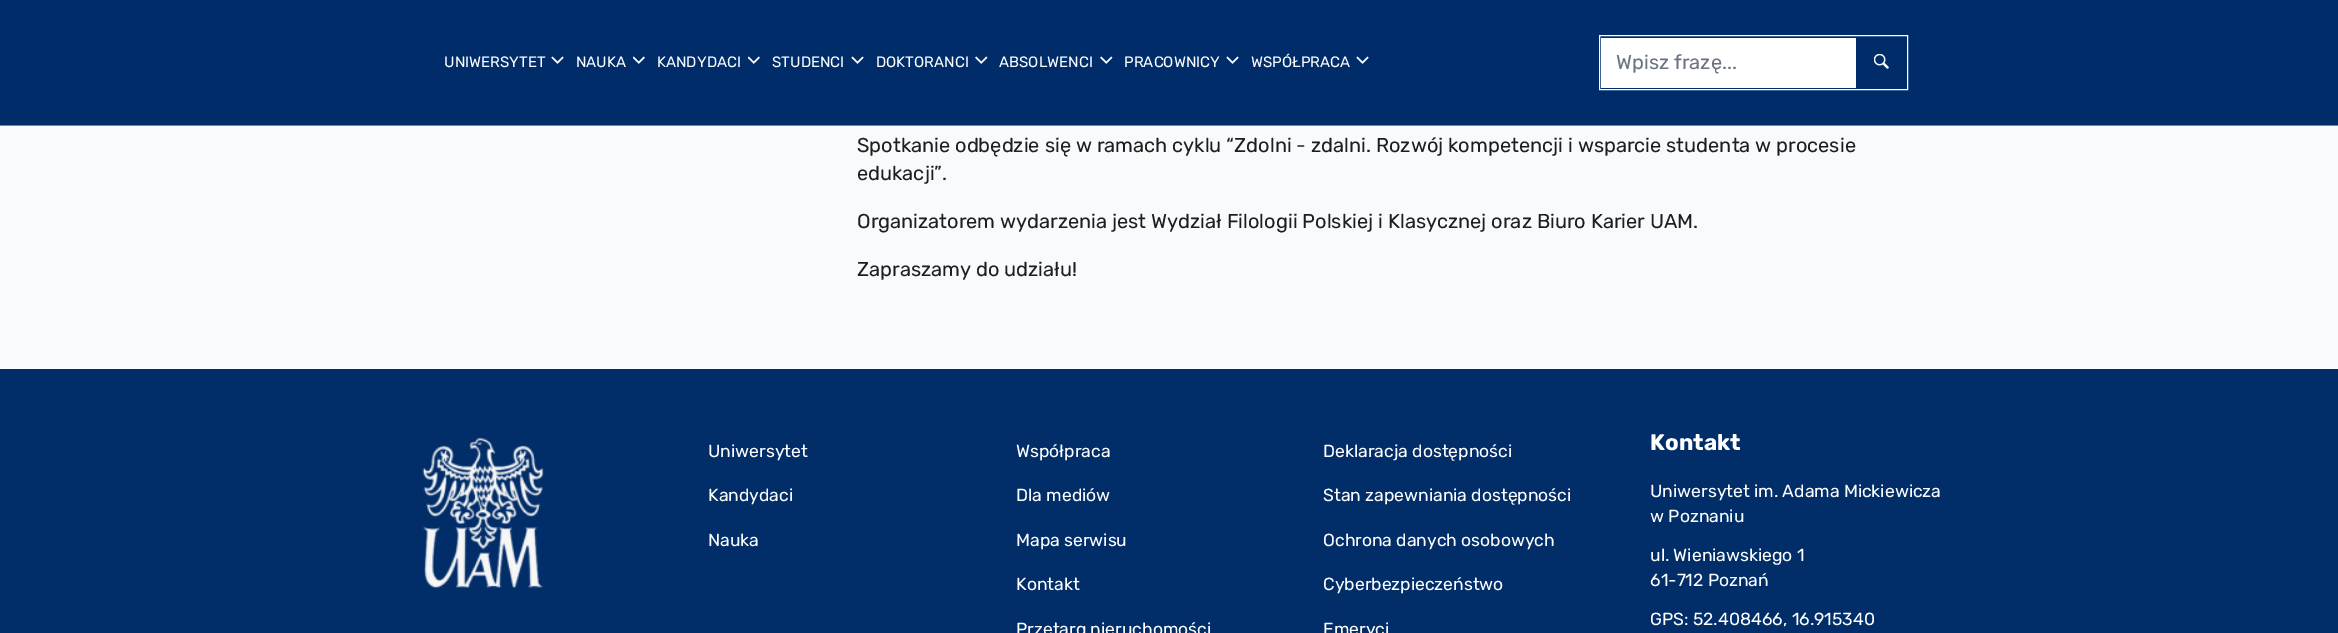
%!PS
<< /PageSize [2338 633] >> setpagedevice
/rgb { 3 { 255 div 3 1 roll } repeat setrgbcolor } def
/font { [ exch dup neg 0 0 3 -1 roll 0 0 ] selectfont } def
/picture { 5 dict begin { /h /w /y /x /name } { exch def } forall
  gsave x y translate w h scale
  w h 8 [w 0 0 h 0 0] name (r) file false 3 colorimage grestore end } def
0 633 translate 1 -1 scale
4 setmiterlimit
249 250 251 rgb
0 0 2338 633 rectfill
0 45 105 rgb
0 0 2338 125 rectfill
120 132 151 rgb
0 125 2338 1 rectfill
(img/1.rgb) 551 56 13 8 picture
(img/2.rgb) 633 56 12 8 picture
(img/2.rgb) 748 56 12 8 picture
(img/1.rgb) 851 56 13 8 picture
(img/3.rgb) 975 56 13 8 picture
(img/3.rgb) 1100 56 13 8 picture
(img/1.rgb) 1226 56 13 8 picture
(img/1.rgb) 1356 56 13 8 picture
255 255 255 rgb
1599.5 35.5 308 54 rectstroke
1601 38 255 50 rectfill
(img/4.rgb) 1874 54 15 15 picture
1 45 105 rgb
0 369 2338 264 rectfill
(img/5.rgb) 422 437 122 151 picture
/Rubik-Regular 15 font
255 255 255 rgb
[
  [(UNIWERSYTET) 444 67]
  [(NAUKA) 576 67]
  [(KANDYDACI) 657 67]
  [(STUDENCI) 772 67]
  [(DOKTORANCI) 876 67]
  [(ABSOLWENCI) 999 67]
  [(PRACOWNICY) 1124 67]
  [(WSPÓŁPRACA) 1251 67]
] { aload pop moveto show } forall
/Rubik-Regular 20 font
107 114 128 rgb
1616 69 moveto (Wpisz frazę...) show
30 30 30 rgb
[
  [(Spotkanie odbędzie się w ramach cyklu “Zdolni - zdalni. Rozwój kompetencji i wsparcie studenta w procesie) 857 152]
  [(edukacji”.) 857 180]
  [(Organizatorem wydarzenia jest Wydział Filologii Polskiej i Klasycznej oraz Biuro Karier UAM.) 857 228]
  [(Zapraszamy do udziału!) 857 276]
] { aload pop moveto show } forall
/Rubik-Regular 17.5 font
255 255 255 rgb
[
  [(Uniwersytet) 708 457]
  [(Kandydaci) 708 501]
  [(Nauka) 708 546]
  [(Współpraca) 1016 457]
  [(Dla mediów) 1016 501]
  [(Mapa serwisu) 1016 546]
  [(Kontakt) 1016 590]
  [(Przetarg nieruchomości) 1016 635]
  [(Deklaracja dostępności) 1323 457]
  [(Stan zapewniania dostępności) 1323 501]
  [(Ochrona danych osobowych) 1323 546]
  [(Cyberbezpieczeństwo) 1323 590]
  [(Emeryci) 1323 635]
] { aload pop moveto show } forall
/Rubik-Bold 22.5 font
1650 450 moveto (Kontakt) show
/Rubik-Regular 17.5 font
[
  [(Uniwersytet im. Adama Mickiewicza) 1650 497]
  [(w Poznaniu) 1650 522]
  [(ul. Wieniawskiego 1) 1650 561]
  [(61-712 Poznań) 1650 586]
  [(GPS: 52.408466, 16.915340) 1650 625]
] { aload pop moveto show } forall
showpage
